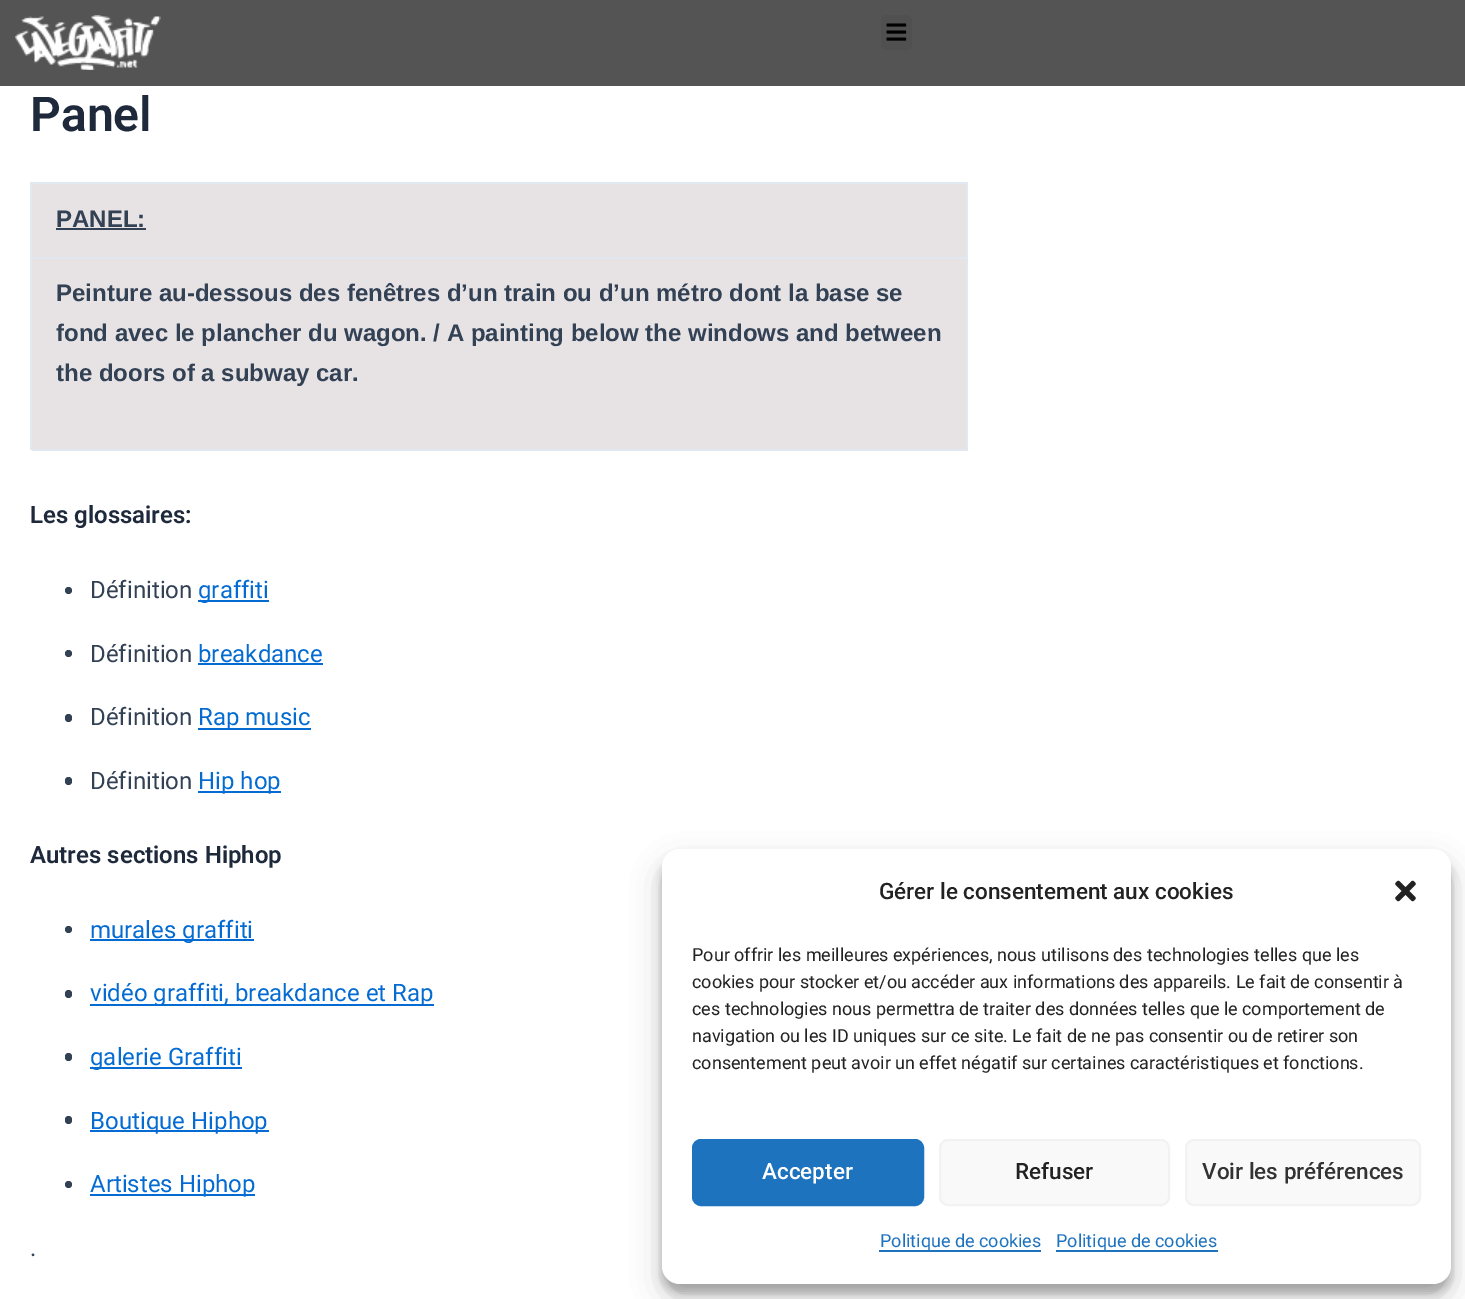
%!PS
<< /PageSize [1465 1299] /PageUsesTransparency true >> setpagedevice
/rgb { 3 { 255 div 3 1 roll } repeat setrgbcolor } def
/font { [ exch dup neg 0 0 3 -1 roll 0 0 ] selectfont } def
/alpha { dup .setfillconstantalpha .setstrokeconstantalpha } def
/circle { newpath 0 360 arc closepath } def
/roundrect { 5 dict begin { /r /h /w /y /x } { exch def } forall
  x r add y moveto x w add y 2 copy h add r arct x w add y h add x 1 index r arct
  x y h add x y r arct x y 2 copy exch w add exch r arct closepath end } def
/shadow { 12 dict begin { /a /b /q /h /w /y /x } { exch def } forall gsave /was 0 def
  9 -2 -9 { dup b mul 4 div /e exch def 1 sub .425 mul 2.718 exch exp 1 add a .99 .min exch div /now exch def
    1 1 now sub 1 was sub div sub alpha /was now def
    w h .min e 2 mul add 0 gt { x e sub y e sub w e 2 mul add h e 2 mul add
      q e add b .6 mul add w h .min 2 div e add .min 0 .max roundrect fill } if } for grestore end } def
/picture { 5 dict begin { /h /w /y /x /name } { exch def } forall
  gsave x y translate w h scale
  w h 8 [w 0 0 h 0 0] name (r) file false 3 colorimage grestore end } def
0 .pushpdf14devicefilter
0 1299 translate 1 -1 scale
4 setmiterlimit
255 255 255 rgb
0 0 1465 1299 rectfill
84 84 84 rgb
0 0 1465 86 rectfill
(img/1.rgb) 15 15 146 55 picture
80 80 80 rgb
881 15 31 35 5 roundrect fill
(img/2.rgb) 886 23 21 18 picture
[
  [32 184 934 265 231 227 229]
  [30 182 938 2 226 232 240]
  [30 182 2 268 226 232 240]
  [966 183 2 75 226 232 240]
  [32 257 936 2 226 232 240]
  [56 228 90 2 51 65 85]
  [966 258 2 192 226 232 240]
  [32 449 936 2 226 232 240]
] { aload pop rgb rectfill } forall
51 65 85 rgb
68.5 590.5 3.5 circle fill
4 107 210 rgb
198 600 71 2 rectfill
51 65 85 rgb
68.5 653.5 3.5 circle fill
4 107 210 rgb
198 663 125 2 rectfill
51 65 85 rgb
65 714 7 8 3.5 roundrect fill
4 107 210 rgb
198 728 113 2 rectfill
51 65 85 rgb
65 777 7 8 3.5 roundrect fill
4 107 210 rgb
198 791 83 2 rectfill
51 65 85 rgb
68.5 929.5 3.5 circle fill
4 107 210 rgb
90 939 164 2 rectfill
51 65 85 rgb
65 990 7 8 3.5 roundrect fill
4 107 210 rgb
90 1004 344 2 rectfill
51 65 85 rgb
65 1053 7 8 3.5 roundrect fill
4 107 210 rgb
90 1067 152 2 rectfill
51 65 85 rgb
65 1116 7 8 3.5 roundrect fill
4 107 210 rgb
90 1130 179 2 rectfill
51 65 85 rgb
68.5 1184.5 3.5 circle fill
4 107 210 rgb
90 1194 165 2 rectfill
0 0 0 rgb
662 858 789 435 18 4.5 0.23 shadow
662 864 789 435 18 15 0.19 shadow
255 255 255 rgb
662 849 789 435 18 roundrect fill
(img/3.rgb) 1395 880 21 22 picture
30 115 190 rgb
693 1140 230 65 8 roundrect gsave fill grestore
2 setlinewidth
stroke
249 249 249 rgb
940 1140 229 65 8 roundrect gsave fill grestore
242 242 242 rgb
stroke
249 249 249 rgb
1186 1140 234 65 8 roundrect gsave fill grestore
242 242 242 rgb
stroke
30 115 190 rgb
879 1250 162 2 rectfill
1056 1250 162 2 rectfill
/Roboto-SemiBold 48 font
30 41 59 rgb
30 131 moveto (Panel) show
/LiberationSans-Bold 24 font
51 65 85 rgb
[
  [(PANEL:) 56 227]
  [(Peinture au-dessous des fenêtres d’un train ou d’un métro dont la base se) 56 301]
  [(fond avec le plancher du wagon. / A painting below the windows and between) 56 341]
  [(the doors of a subway car.) 56 381]
] { aload pop moveto show } forall
/Roboto-SemiBold 24 font
30 41 59 rgb
30 523 moveto (Les glossaires:) show
/Roboto-Regular 24 font
51 65 85 rgb
90 598 moveto (Définition) show
4 107 210 rgb
198 598 moveto (graffiti) show
51 65 85 rgb
90 662 moveto (Définition) show
4 107 210 rgb
198 662 moveto (breakdance) show
51 65 85 rgb
90 725 moveto (Définition) show
4 107 210 rgb
198 725 moveto (Rap music) show
51 65 85 rgb
90 789 moveto (Définition) show
4 107 210 rgb
198 789 moveto (Hip hop) show
/Roboto-SemiBold 24 font
30 41 59 rgb
30 863 moveto (Autres sections Hiphop) show
/Roboto-Regular 24 font
4 107 210 rgb
[
  [(murales graffiti) 90 938]
  [(vidéo graffiti, breakdance et Rap) 90 1001]
  [(galerie Graffiti) 90 1065]
  [(Boutique Hiphop) 90 1129]
  [(Artistes Hiphop) 90 1192]
] { aload pop moveto show } forall
51 65 85 rgb
30 1256 moveto (.) show
/Roboto-Medium 22.5 font
34 34 34 rgb
879 899 moveto (Gérer le consentement aux cookies) show
/Roboto-Regular 18 font
[
  [(Pour offrir les meilleures expériences, nous utilisons des technologies telles que les) 692 961]
  [(cookies pour stocker et/ou accéder aux informations des appareils. Le fait de consentir à) 692 988]
  [(ces technologies nous permettra de traiter des données telles que le comportement de) 692 1015]
  [(navigation ou les ID uniques sur ce site. Le fait de ne pas consentir ou de retirer son) 692 1042]
  [(consentement peut avoir un effet négatif sur certaines caractéristiques et fonctions.) 692 1069]
] { aload pop moveto show } forall
/Roboto-Medium 22.5 font
255 255 255 rgb
762 1179 moveto (Accepter) show
34 34 34 rgb
1015 1179 moveto (Refuser) show
51 51 51 rgb
1202 1179 moveto (Voir les préférences) show
/Roboto-Regular 18 font
30 115 190 rgb
880 1247 moveto (Politique de cookies) show
1056 1247 moveto (Politique de cookies) show
.poppdf14devicefilter showpage
